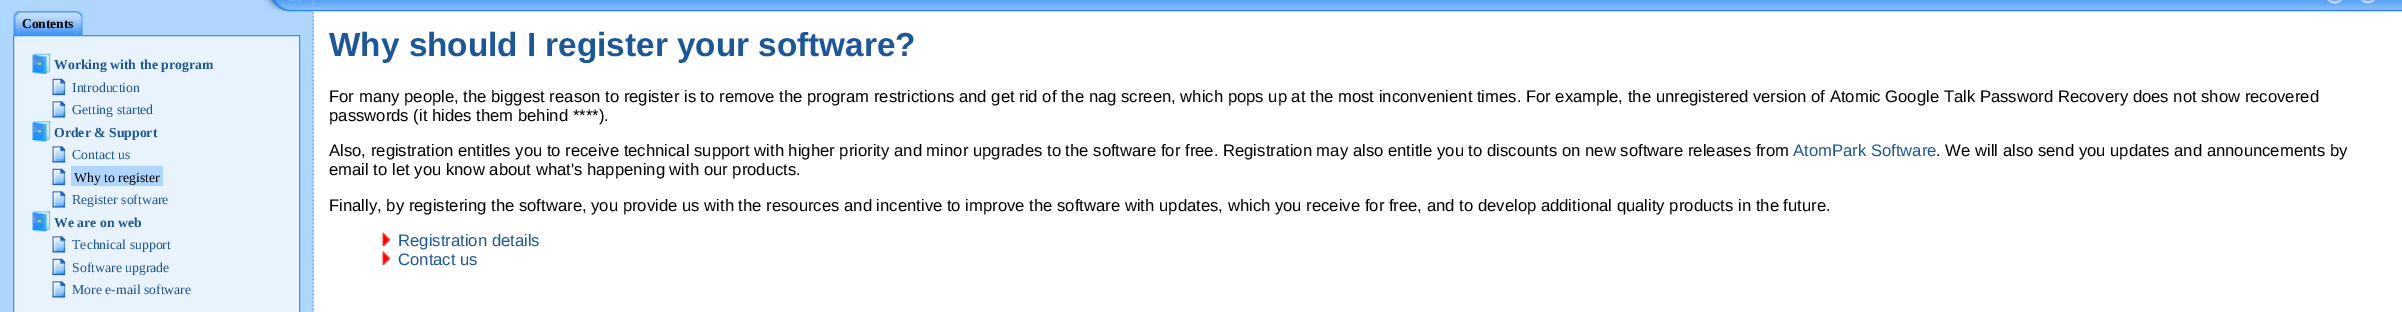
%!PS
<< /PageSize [2402 312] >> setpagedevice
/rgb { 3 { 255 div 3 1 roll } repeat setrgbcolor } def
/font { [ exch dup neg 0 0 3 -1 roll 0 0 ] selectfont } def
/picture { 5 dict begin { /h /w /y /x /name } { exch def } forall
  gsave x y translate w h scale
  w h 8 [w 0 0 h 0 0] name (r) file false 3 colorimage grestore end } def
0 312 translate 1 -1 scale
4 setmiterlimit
255 255 255 rgb
0 0 2402 312 rectfill
175 214 255 rgb
0 0 313 312 rectfill
(img/10.rgb) 312 0 2 312 picture
(img/1.rgb) 264 0 49 12 picture
(img/3.rgb) 18 11 59 24 picture
(img/2.rgb) 13 11 6 24 picture
(img/4.rgb) 76 11 7 24 picture
233 243 254 rgb
13.5 35.5 moveto 299.5 35.5 lineto 299.5 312.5 lineto 13.5 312.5 lineto closepath gsave fill grestore
56 145 247 rgb
stroke
(img/5.rgb) 32 53 19 21 picture
(img/6.rgb) 52 78 14 18 picture
(img/7.rgb) 52 101 14 17 picture
(img/8.rgb) 32 121 19 21 picture
(img/7.rgb) 52 146 14 17 picture
(img/6.rgb) 52 168 14 18 picture
175 214 255 rgb
71 166 92 20 rectfill
(img/7.rgb) 52 191 14 17 picture
(img/8.rgb) 32 211 19 21 picture
(img/7.rgb) 52 236 14 17 picture
(img/9.rgb) 52 258 14 18 picture
(img/7.rgb) 52 281 14 17 picture
(img/12.rgb) 313 0 2089 12 picture
(img/11.rgb) 312 0 2 12 picture
(img/13.rgb) 2327 0 16 4 picture
(img/14.rgb) 2360 0 16 4 picture
(img/15.rgb) 382 232 9 15 picture
(img/16.rgb) 382 251 9 14 picture
/LiberationSerif-Bold 13.5 font
0 0 0 rgb
22 28 moveto (Contents) show
/LiberationSerif-Bold 13.75 font
30 87 152 rgb
54 69 moveto (Working with the program) show
/LiberationSerif-Regular 13.75 font
72 92 moveto (Introduction) show
72 114 moveto (Getting started) show
/LiberationSerif-Bold 13.75 font
54 137 moveto (Order & Support) show
/LiberationSerif-Regular 13.75 font
72 159 moveto (Contact us) show
0 0 0 rgb
74 182 moveto (Why to register) show
30 87 152 rgb
72 204 moveto (Register software) show
/LiberationSerif-Bold 13.75 font
54 227 moveto (We are on web) show
/LiberationSerif-Regular 13.75 font
[
  [(Technical support) 72 249]
  [(Software upgrade) 72 272]
  [(More e-mail software) 72 294]
] { aload pop moveto show } forall
/LiberationSans-Bold 33.3 font
329 56 moveto (Why should I register your software?) show
/LiberationSans-Regular 16.67 font
0 0 0 rgb
[
  [(For many people, the biggest reason to register is to remove the program restrictions and get rid of the nag screen, which pops up at the most inconvenient times. For example, the unregistered version of Atomic Google Talk Password Recovery does not show recovered) 329 102]
  [(passwords \(it hides them behind ****\).) 329 121]
  [(Also, registration entitles you to receive technical support with higher priority and minor upgrades to the software for free. Registration may also entitle you to discounts on new software releases from) 329 156]
] { aload pop moveto show } forall
30 87 152 rgb
1793 156 moveto (AtomPark Software) show
0 0 0 rgb
[
  [(. We will also send you updates and announcements by) 1936 156]
  [(email to let you know about what's happening with our products.) 329 175]
  [(Finally, by registering the software, you provide us with the resources and incentive to improve the software with updates, which you receive for free, and to develop additional quality products in the future.) 329 211]
] { aload pop moveto show } forall
30 87 152 rgb
398 246 moveto (Registration details) show
398 265 moveto (Contact us) show
showpage
